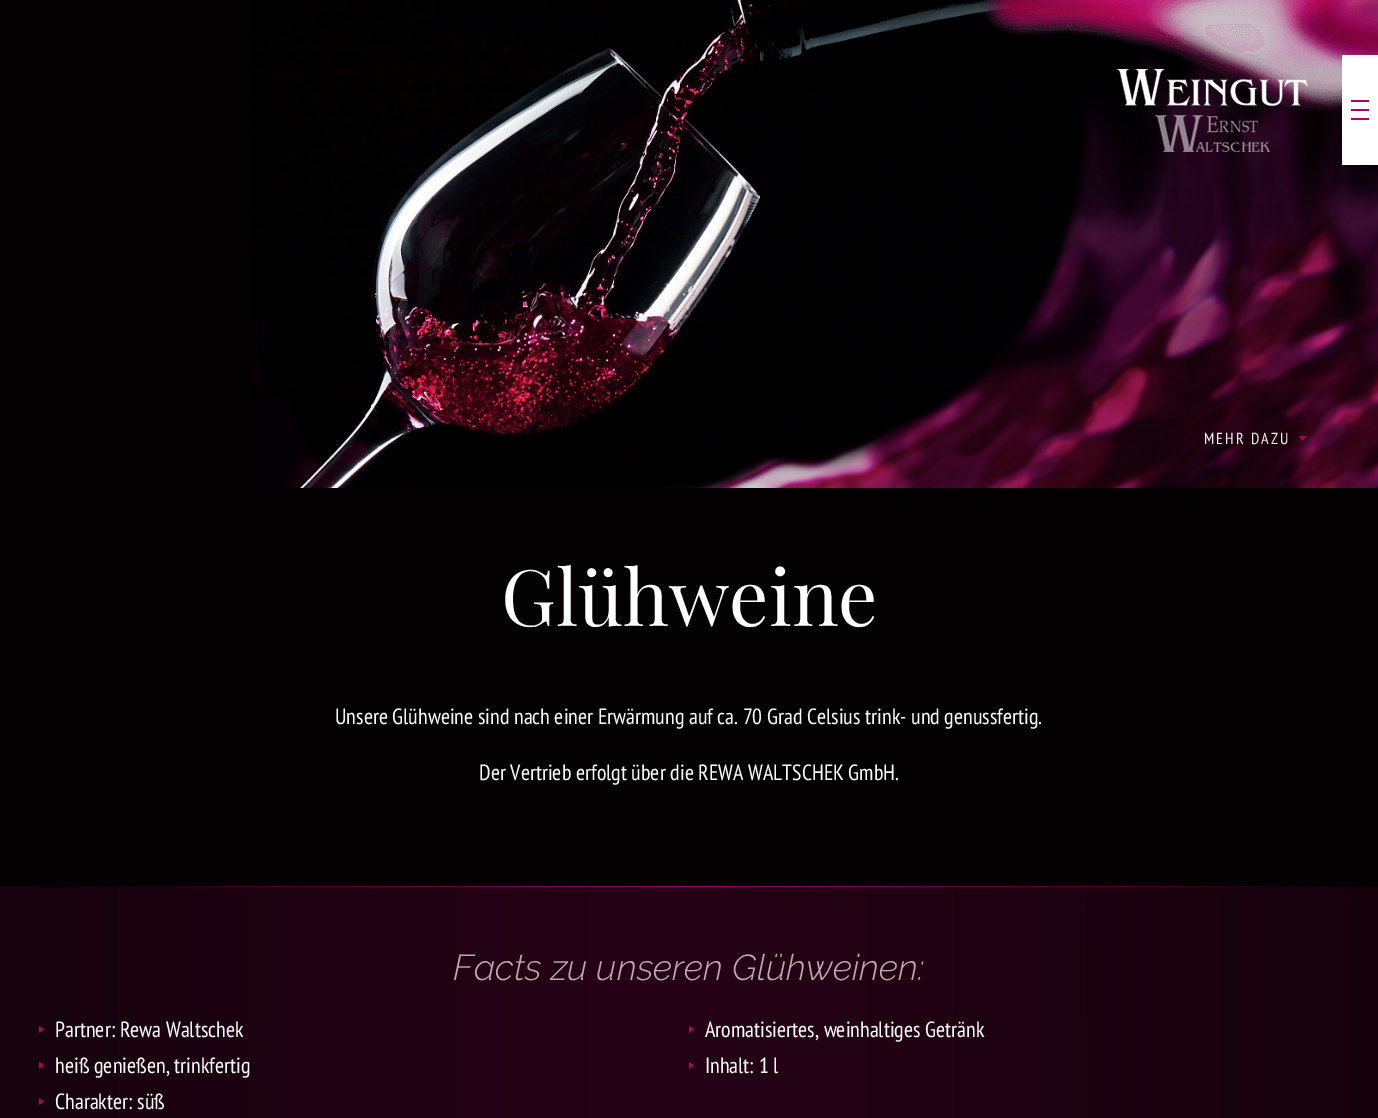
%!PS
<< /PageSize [1378 1118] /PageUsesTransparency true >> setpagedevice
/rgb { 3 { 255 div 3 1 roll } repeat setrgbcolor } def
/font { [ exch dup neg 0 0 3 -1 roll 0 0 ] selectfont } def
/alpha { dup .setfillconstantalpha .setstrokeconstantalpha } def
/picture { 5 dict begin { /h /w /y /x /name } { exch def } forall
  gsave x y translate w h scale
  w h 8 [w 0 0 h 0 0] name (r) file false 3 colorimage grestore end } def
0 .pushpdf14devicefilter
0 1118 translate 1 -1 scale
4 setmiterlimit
3 1 2 rgb
0 0 1378 1118 rectfill
(img/3.rgb) 252 0 1126 488 picture
(img/4.rgb) 980 0 398 112 picture
(img/1.rgb) 1117 69 191 83 picture
255 255 255 rgb
1342 55 36 110 rectfill
(img/2.rgb) 1351 100 18 20 picture
0.95 alpha
175 0 97 rgb
1299 436 moveto 1302.5 441 lineto 1306 436 lineto closepath fill
/PTSansNarrow-Regular 16 font
1 alpha
244 242 243 rgb
1204 444 moveto 2 0 (MEHR DAZU) ashow
/PlayfairDisplay-Regular 78 font
255 255 255 rgb
501 626 moveto (Glühweine) show
/PTSansNarrow-Regular 22 font
335 724 moveto (Unsere Glühweine sind nach einer Erwärmung auf ca. 70 Grad Celsius trink- und genussfertig.) show
479 780 moveto (Der Vertrieb erfolgt über die REWA WALTSCHEK GmbH.) show
/Raleway-LightItalic 36 font
205 204 204 rgb
453 980 moveto (Facts zu unseren Glühweinen:) show
0.2 alpha
gsave 0 886 moveto 1378 886 lineto 1378 1118 lineto 0 1118 lineto closepath clip newpath
<< /ShadingType 2 /ColorSpace /DeviceRGB /Coords [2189 1032 -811 1032] /Extend [true true] /Function << /FunctionType 3 /Domain [0 1] /Functions [<< /FunctionType 2 /Domain [0 1] /C0 [0 0 0] /C1 [0.686 0 0.38] /N 1 >> << /FunctionType 2 /Domain [0 1] /C0 [0.686 0 0.38] /C1 [0 0 0] /N 1 >>] /Bounds [0.51] /Encode [0 1 0 1] >> >> shfill grestore
1 alpha
gsave 39 886 moveto 1378 886 lineto 1378 887 lineto 39 887 lineto closepath clip newpath
<< /ShadingType 2 /ColorSpace /DeviceRGB /Coords [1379 887 39 887] /Extend [true true] /Function << /FunctionType 3 /Domain [0 1] /Functions [<< /FunctionType 2 /Domain [0 1] /C0 [0 0 0] /C1 [0.686 0 0.38] /N 1 >> << /FunctionType 2 /Domain [0 1] /C0 [0.686 0 0.38] /C1 [0 0 0] /N 1 >>] /Bounds [0.51] /Encode [0 1 0 1] >> >> shfill grestore
175 0 97 rgb
39 1033 moveto 44 1029.5 lineto 39 1026 lineto closepath fill
/PTSansNarrow-Regular 22 font
255 255 255 rgb
55 1037 moveto (Partner: Rewa Waltschek) show
175 0 97 rgb
689 1033 moveto 694 1029.5 lineto 689 1026 lineto closepath fill
255 255 255 rgb
705 1037 moveto (Aromatisiertes, weinhaltiges Getränk) show
175 0 97 rgb
39 1069 moveto 44 1065.5 lineto 39 1062 lineto closepath fill
255 255 255 rgb
55 1073 moveto (heiß genießen, trinkfertig) show
175 0 97 rgb
689 1069 moveto 694 1065.5 lineto 689 1062 lineto closepath fill
255 255 255 rgb
705 1073 moveto (Inhalt: 1 l) show
175 0 97 rgb
39 1105 moveto 44 1101.5 lineto 39 1098 lineto closepath fill
255 255 255 rgb
55 1109 moveto (Charakter: süß) show
.poppdf14devicefilter showpage
